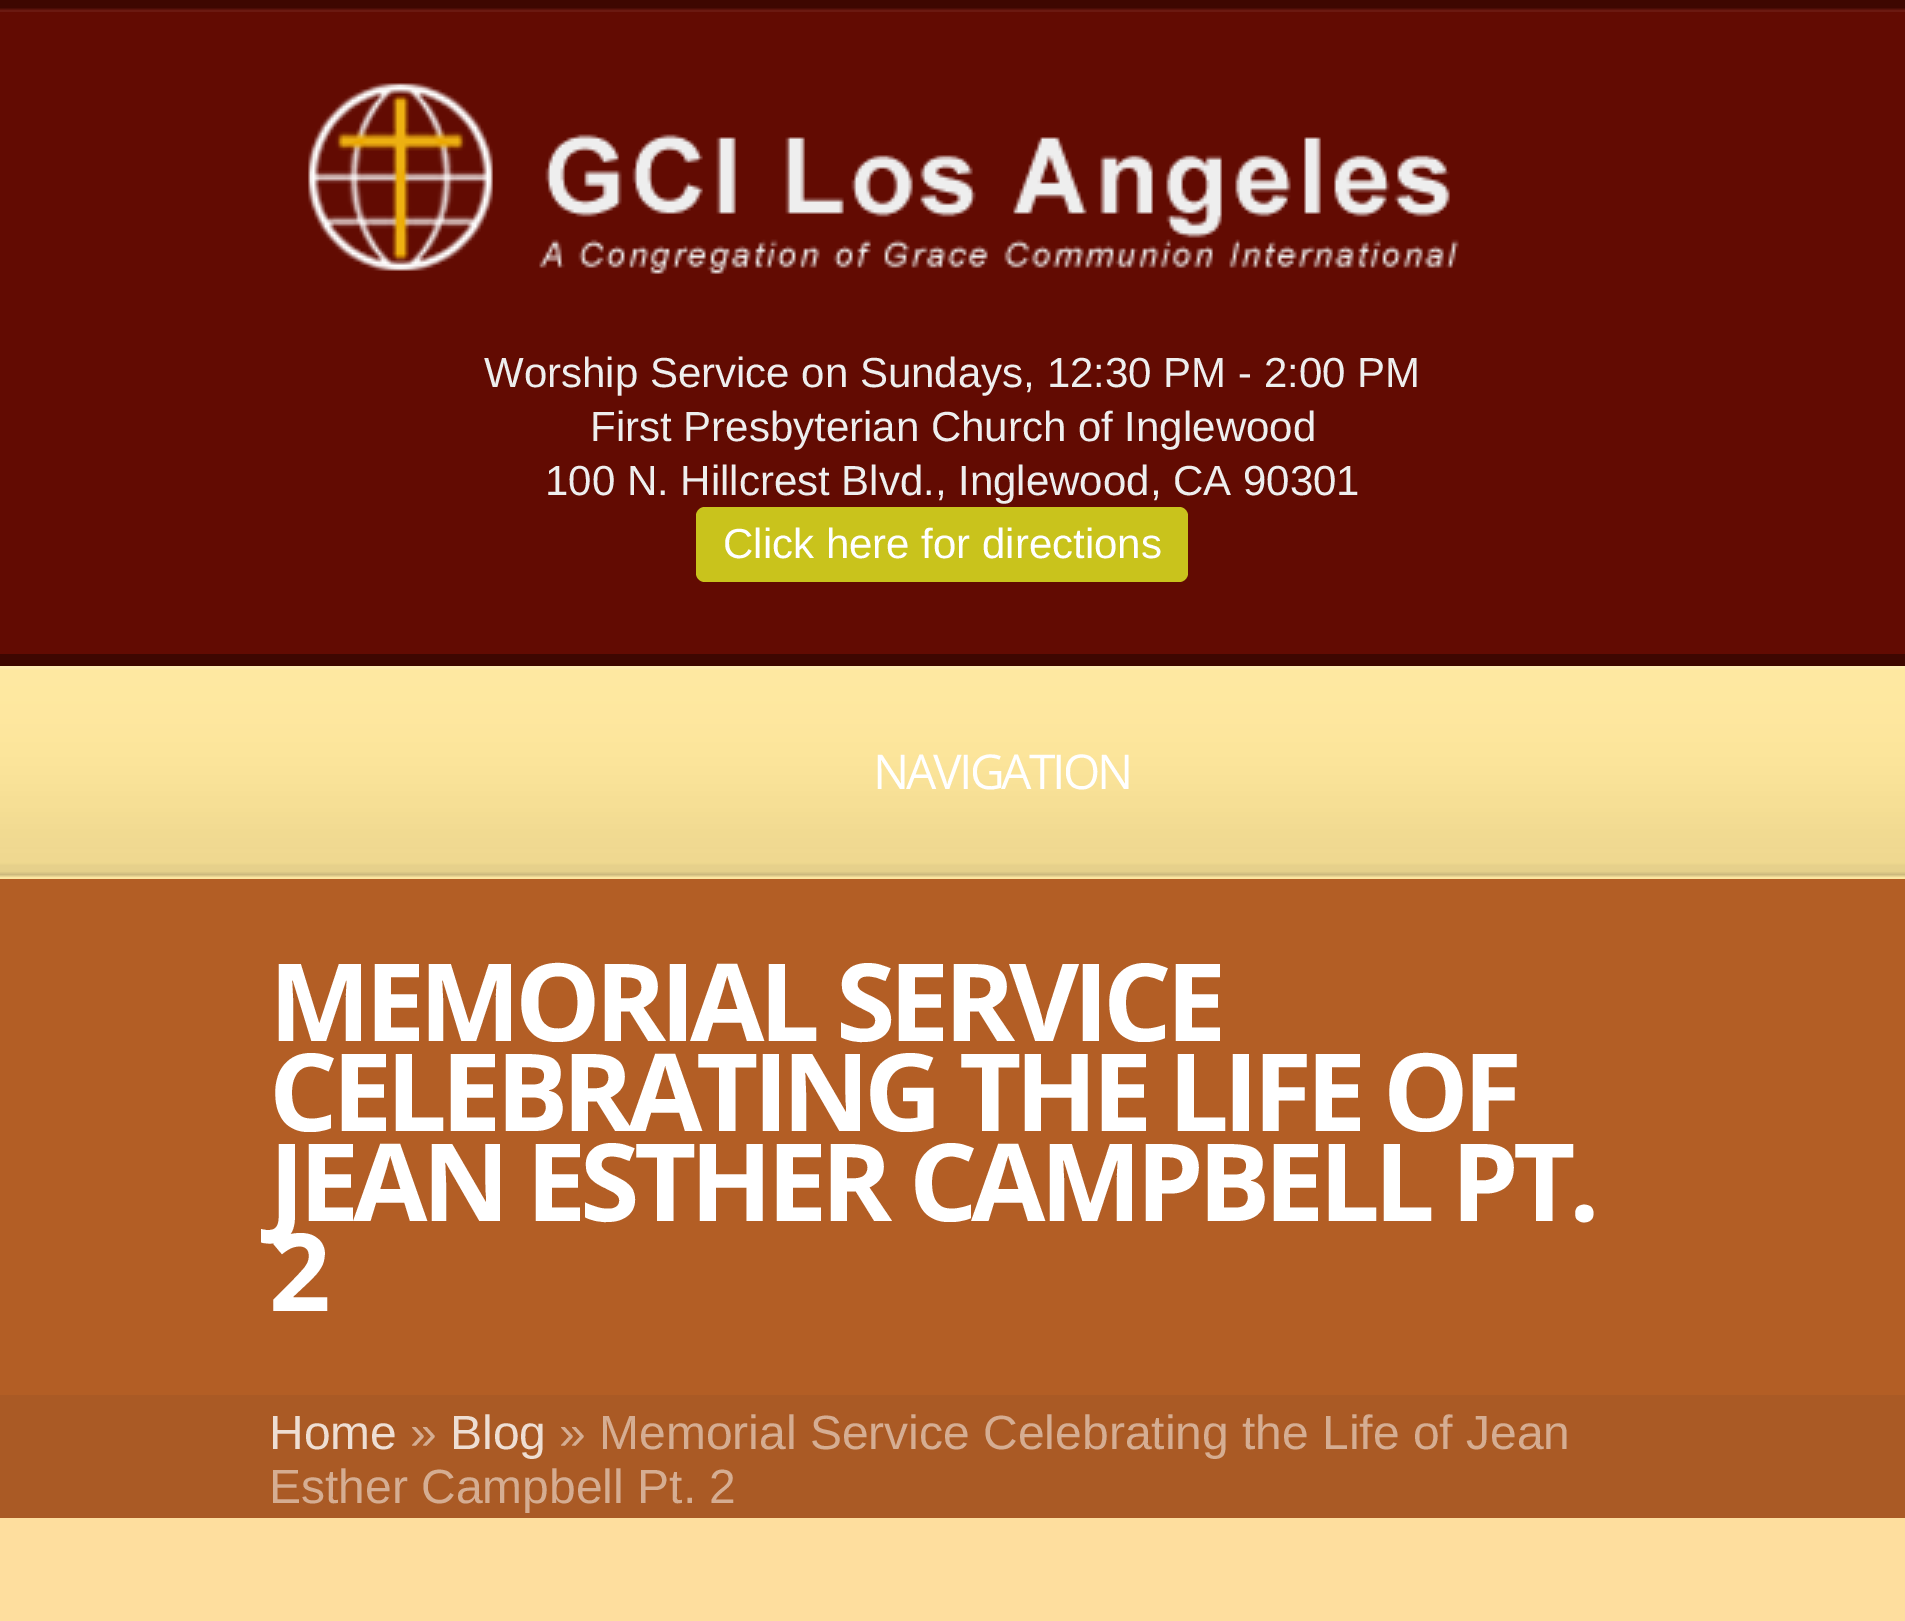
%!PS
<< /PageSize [1905 1621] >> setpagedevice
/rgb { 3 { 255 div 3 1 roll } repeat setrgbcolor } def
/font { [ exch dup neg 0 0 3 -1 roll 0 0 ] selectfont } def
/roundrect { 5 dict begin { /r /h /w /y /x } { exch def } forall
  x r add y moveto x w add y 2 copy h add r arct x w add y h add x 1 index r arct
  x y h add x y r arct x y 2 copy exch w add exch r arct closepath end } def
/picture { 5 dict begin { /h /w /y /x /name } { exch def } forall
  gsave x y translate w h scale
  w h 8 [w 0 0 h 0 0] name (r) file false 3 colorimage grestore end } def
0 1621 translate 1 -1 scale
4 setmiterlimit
98 11 2 rgb
0 0 1905 1621 rectfill
62 7 1 rgb
0 654 1905 12 rectfill
(img/1.rgb) 0 0 1905 12 picture
(img/2.rgb) 308 83 1151 191 picture
201 195 28 rgb
696 507 492 75 9 roundrect fill
179 94 37 rgb
0 879 1905 639 rectfill
254 230 153 rgb
0 666 1905 213 rectfill
(img/3.rgb) 0 849 1905 30 picture
(img/4.rgb) 0 666 1905 183 picture
(img/5.rgb) 0 1395 1905 123 picture
254 222 158 rgb
0 1518 1905 103 rectfill
/LiberationSans-Regular 42 font
238 238 238 rgb
[
  [(Worship Service on Sundays, 12:30 PM - 2:00 PM) 484 387]
  [(First Presbyterian Church of Inglewood) 590 441]
  [(100 N. Hillcrest Blvd., Inglewood, CA 90301) 545 495]
] { aload pop moveto show } forall
255 255 255 rgb
723 558 moveto (Click here for directions) show
/OpenSans-Regular 48 font
873 789 moveto -3 0 (NAVIGATION) ashow
/OpenSans-Bold 108 font
269 1041 moveto -6 0 (MEMORIAL SERVICE) ashow
269 1131 moveto -6 0 (CELEBRATING THE LIFE OF) ashow
269 1221 moveto -6 0 (JEAN ESTHER CAMPBELL PT.) ashow
269 1311 moveto -6 0 (2) ashow
/LiberationSans-Regular 48 font
238 222 211 rgb
269 1449 moveto (Home) show
213 173 146 rgb
410 1449 moveto (») show
238 222 211 rgb
450 1449 moveto (Blog) show
213 173 146 rgb
559 1449 moveto (» Memorial Service Celebrating the Life of Jean) show
269 1503 moveto (Esther Campbell Pt. 2) show
showpage
